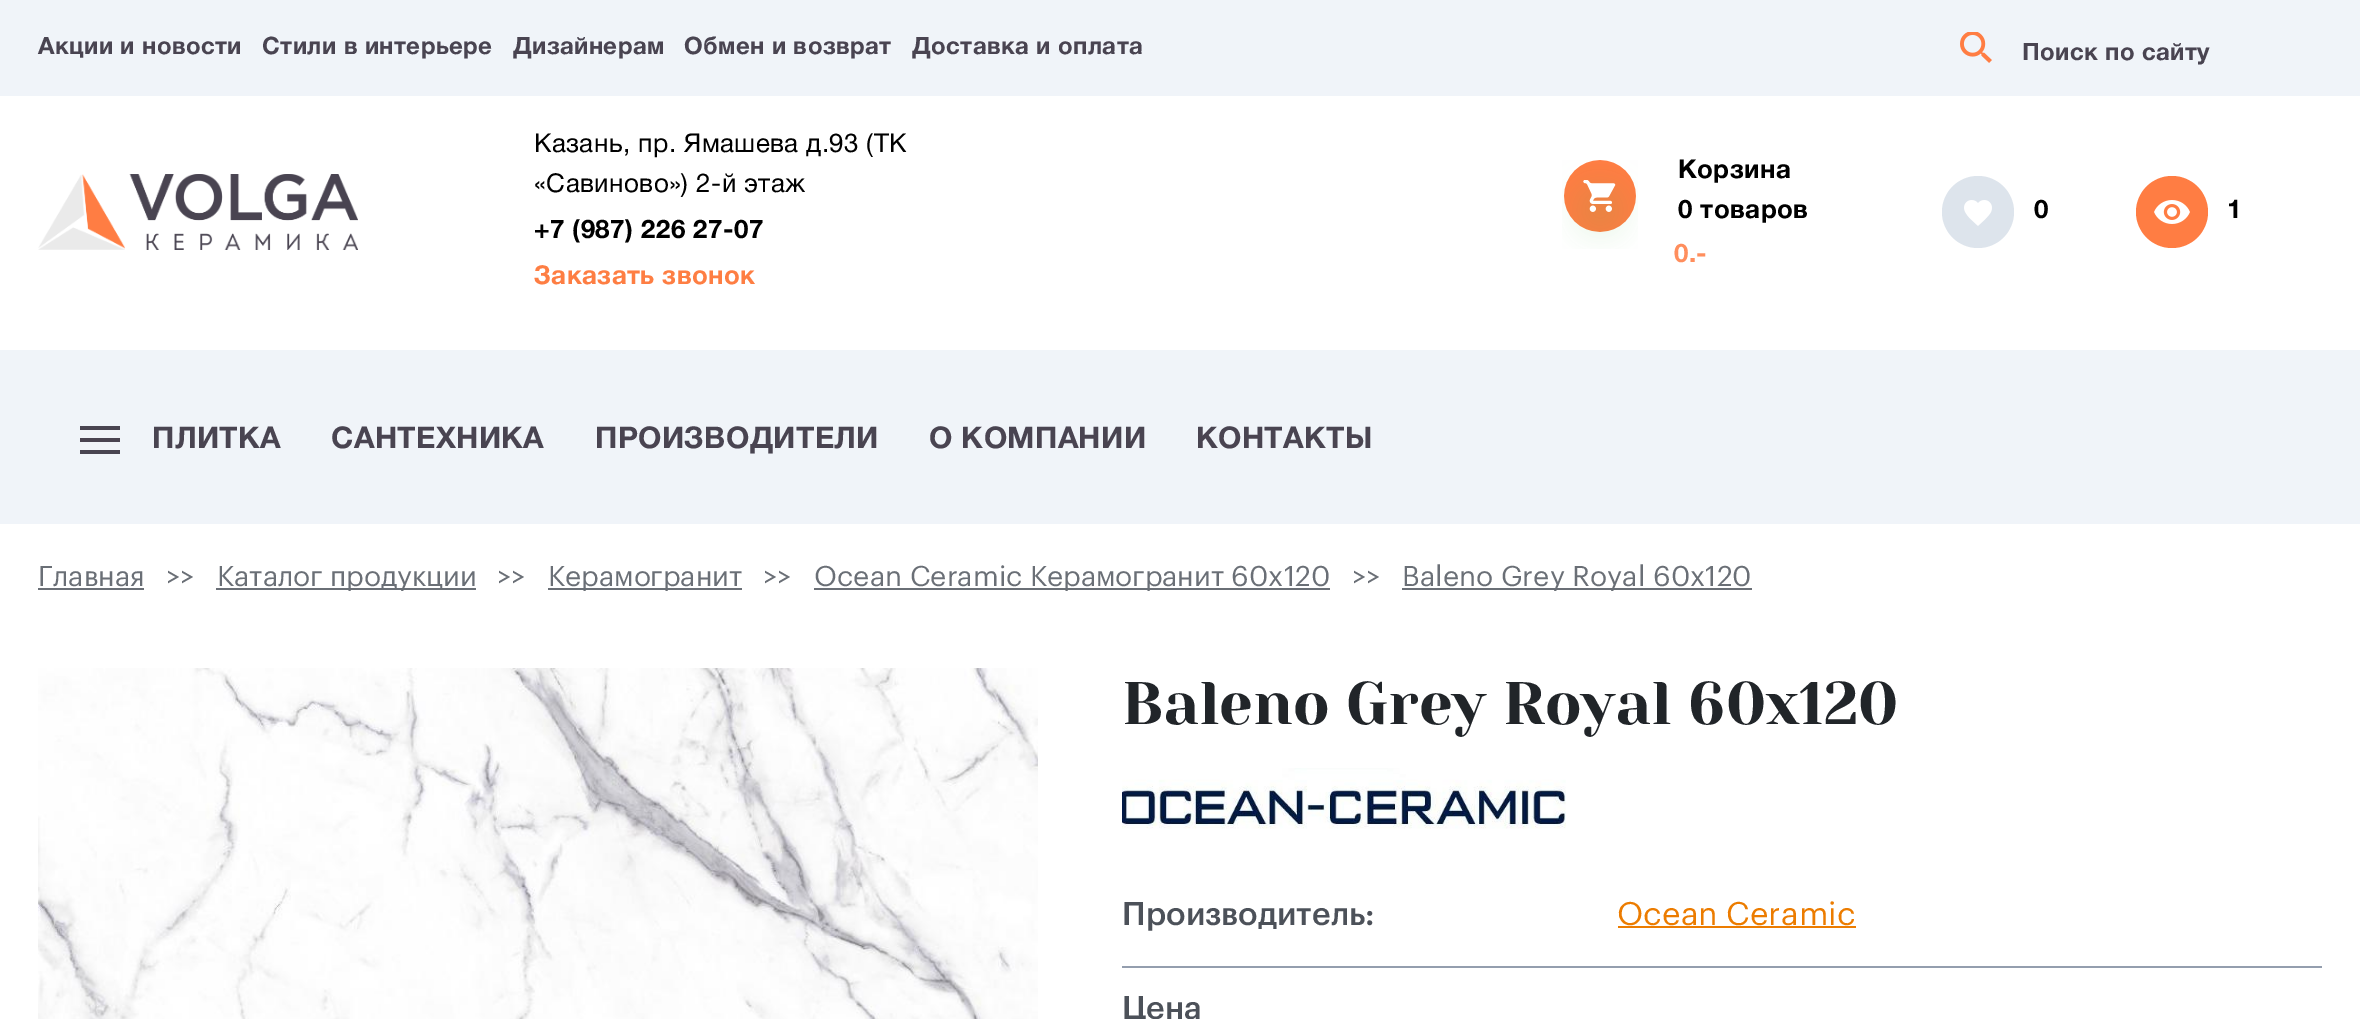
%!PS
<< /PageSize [2360 1019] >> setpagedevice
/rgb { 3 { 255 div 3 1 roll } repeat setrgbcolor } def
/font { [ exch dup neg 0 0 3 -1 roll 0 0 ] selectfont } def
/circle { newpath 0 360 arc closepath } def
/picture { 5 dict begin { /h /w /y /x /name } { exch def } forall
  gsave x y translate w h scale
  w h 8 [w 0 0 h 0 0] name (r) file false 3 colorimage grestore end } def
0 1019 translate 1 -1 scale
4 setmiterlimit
240 244 249 rgb
0 0 2360 1019 rectfill
(img/1.rgb) 1960 32 32 31 picture
255 255 255 rgb
0 96 2360 254 rectfill
(img/2.rgb) 38 174 320 76 picture
(img/3.rgb) 1562 160 76 89 picture
221 228 236 rgb
1978 212 36 circle fill
(img/4.rgb) 1964 200 28 26 picture
255 125 67 rgb
2172 212 36 circle fill
(img/5.rgb) 2154 200 36 24 picture
[
  [80 426 40 4 73 68 81]
  [80 438 40 4 73 68 81]
  [80 450 40 4 73 68 81]
  [0 524 2360 495 255 255 255]
  [38 588 106 2 106 111 118]
  [216 588 260 2 106 111 118]
  [548 588 194 2 106 111 118]
  [814 588 516 2 106 111 118]
  [1402 588 350 2 106 111 118]
] { aload pop rgb rectfill } forall
(img/6.rgb) 38 668 1000 351 picture
(img/7.rgb) 1122 768 444 61 picture
236 124 0 rgb
1618 926 238 2 rectfill
148 158 174 rgb
1122 966 1200 2 rectfill
/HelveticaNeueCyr-Bold 24 font
73 68 81 rgb
38 54 moveto 0.4 0 (Акции и новости) ashow
262 54 moveto 0.4 0 (Стили в интерьере) ashow
513 54 moveto 0.4 0 (Дизайнерам) ashow
684 54 moveto 0.4 0 (Обмен и возврат) ashow
912 54 moveto 0.4 0 (Доставка и оплата) ashow
2022 60 moveto 0.4 0 (Поиск по сайту) ashow
/HelveticaNeueCyr-Regular 26 font
0 0 0 rgb
534 152 moveto 0.4 0 (Казань, пр. Ямашева д.93 \(ТК) ashow
534 192 moveto 0.4 0 («Савиново»\) 2-й этаж) ashow
/HelveticaNeueCyr-Bold 26 font
534 238 moveto 0.4 0 (+7 \(987\) 226 27-07) ashow
254 126 67 rgb
534 284 moveto 0.4 0 (Заказать звонок) ashow
0 0 0 rgb
1678 178 moveto 0.4 0 (Корзина) ashow
1678 218 moveto 0.4 0 (0 товаров) ashow
255 142 93 rgb
1674 262 moveto 0.4 0 (0.-) ashow
0 0 0 rgb
2034 218 moveto 0.4 0 (0) ashow
2227 218 moveto 0.4 0 (1) ashow
/HelveticaNeueCyr-Bold 30 font
73 68 81 rgb
152 448 moveto 0.4 0 (ПЛИТКА) ashow
331 448 moveto 0.4 0 (САНТЕХНИКА) ashow
595 448 moveto 0.4 0 (ПРОИЗВОДИТЕЛИ) ashow
929 448 moveto 0.4 0 (О КОМПАНИИ) ashow
1196 448 moveto 0.4 0 (КОНТАКТЫ) ashow
/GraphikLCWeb-Regular 28 font
106 111 118 rgb
[
  [(Главная) 38 586]
  [(>>) 166 586]
  [(Каталог продукции) 217 586]
  [(>>) 497 586]
  [(Керамогранит) 548 586]
  [(>>) 763 586]
  [(Ocean Ceramic Керамогранит 60x120) 814 586]
  [(>>) 1352 586]
  [(Baleno Grey Royal 60x120) 1402 586]
] { aload pop moveto show } forall
/YesevaOne-Regular 60 font
33 37 41 rgb
1122 724 moveto (Baleno Grey Royal 60x120) show
/GraphikLCWeb-Medium 32 font
76 81 89 rgb
1122 925 moveto (Производитель:) show
/GraphikLCWeb-Regular 32 font
236 124 0 rgb
1617 925 moveto (Ocean Ceramic) show
/GraphikLCWeb-Medium 32 font
76 81 89 rgb
1122 1019 moveto (Цена) show
showpage
